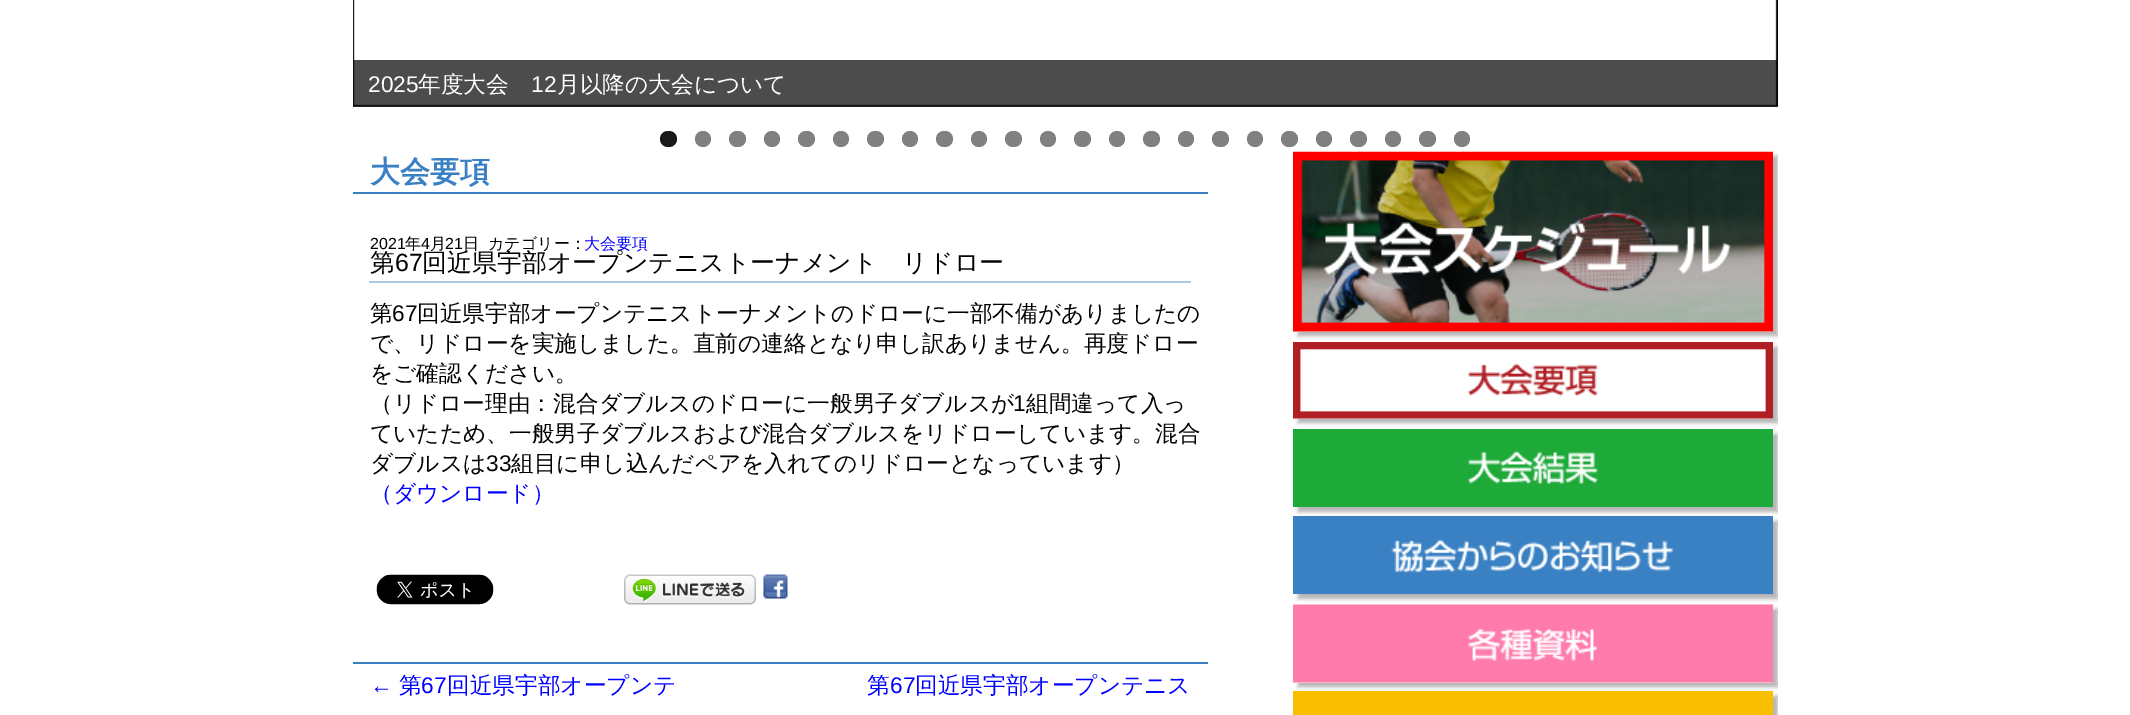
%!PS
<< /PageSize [2130 715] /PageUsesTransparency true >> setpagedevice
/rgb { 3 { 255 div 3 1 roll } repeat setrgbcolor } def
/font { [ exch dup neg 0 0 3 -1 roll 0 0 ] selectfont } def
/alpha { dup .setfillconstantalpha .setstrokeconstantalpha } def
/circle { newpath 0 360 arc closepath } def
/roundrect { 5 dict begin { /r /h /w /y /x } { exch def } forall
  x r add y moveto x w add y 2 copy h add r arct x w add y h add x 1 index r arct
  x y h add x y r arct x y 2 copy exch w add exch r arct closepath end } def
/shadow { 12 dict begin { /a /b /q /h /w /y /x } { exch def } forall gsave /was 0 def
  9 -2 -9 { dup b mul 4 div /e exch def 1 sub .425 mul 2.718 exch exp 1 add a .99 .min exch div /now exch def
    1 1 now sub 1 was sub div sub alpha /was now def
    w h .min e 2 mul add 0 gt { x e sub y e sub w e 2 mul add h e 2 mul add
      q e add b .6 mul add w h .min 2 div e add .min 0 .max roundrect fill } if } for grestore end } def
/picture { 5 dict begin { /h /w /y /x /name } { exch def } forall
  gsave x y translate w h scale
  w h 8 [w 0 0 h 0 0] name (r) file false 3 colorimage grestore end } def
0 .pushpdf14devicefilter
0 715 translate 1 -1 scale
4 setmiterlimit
255 255 255 rgb
0 0 2130 715 rectfill
(img/1.rgb) 353 0 1425 107 picture
0.7 alpha
0 0 0 rgb
353 60 1425 47 rectfill
1 alpha
26 26 26 rgb
660 131 17 16 8 roundrect fill
128 128 128 rgb
703 139 8 circle fill
729 131 17 16 8 roundrect fill
772 139 8 circle fill
798 131 17 16 8 roundrect fill
841 139 8 circle fill
867 131 17 16 8 roundrect fill
910 139 8 circle fill
936 131 17 16 8 roundrect fill
979 139 8 circle fill
1005 131 17 16 8 roundrect fill
1048 139 8 circle fill
1074 131 17 16 8 roundrect fill
1117 139 8 circle fill
1143 131 17 16 8 roundrect fill
1186 139 8 circle fill
1212 131 17 16 8 roundrect fill
1255 139 8 circle fill
1281 131 17 16 8 roundrect fill
1324 139 8 circle fill
1350 131 17 16 8 roundrect fill
1393 139 8 circle fill
1419 131 17 16 8 roundrect fill
1462 139 8 circle fill
[
  [353 662 855 2 58 129 196]
  [353 192 855 2 58 129 196]
  [369 281 822 2 171 201 227]
] { aload pop rgb rectfill } forall
(img/2.rgb) 376 574 118 31 picture
(img/3.rgb) 624 574 132 31 picture
(img/4.rgb) 763 574 25 25 picture
gsave
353 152 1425 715 rectclip
0 0 0 rgb
1298 156 480 180 0 2 0.3 shadow
grestore
238 238 238 rgb
1293 331 480 1 rectfill
(img/5.rgb) 1293 151 480 181 picture
gsave
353 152 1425 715 rectclip
0 0 0 rgb
1298 347 480 76 0 2 0.3 shadow
grestore
1293 418 480 1 rectfill
(img/6.rgb) 1293 342 480 77 picture
gsave
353 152 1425 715 rectclip
0 0 0 rgb
1298 434 480 78 0 2 0.3 shadow
grestore
(img/7.rgb) 1293 429 480 78 picture
gsave
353 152 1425 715 rectclip
0 0 0 rgb
1298 521 480 78 0 2 0.3 shadow
grestore
(img/8.rgb) 1293 516 480 78 picture
gsave
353 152 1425 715 rectclip
0 0 0 rgb
1298 609 480 78 0 2 0.3 shadow
grestore
1293 682 480 1 rectfill
(img/9.rgb) 1293 604 480 79 picture
gsave
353 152 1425 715 rectclip
0 0 0 rgb
1298 696 480 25 0 2 0.3 shadow
grestore
249 190 0 rgb
1293 691 480 24 rectfill
/LiberationSans-Regular 22.7 font
255 255 255 rgb
368 92 moveto (2025) show
/WenQuanYiZenHei-Medium 22.7 font
418 92 moveto (年度大会) show
/LiberationSans-Regular 22.7 font
531 92 moveto (12) show
/WenQuanYiZenHei-Medium 22.7 font
557 92 moveto (月以降の大会について) show
/WenQuanYiZenHei-Bold 30 font
58 129 196 rgb
370 182 moveto (大会要項) show
/LiberationSans-Regular 16 font
0 0 0 rgb
370 249 moveto (2021) show
/WenQuanYiZenHei-Medium 16 font
405 249 moveto (年) show
/LiberationSans-Regular 16 font
421 249 moveto (4) show
/WenQuanYiZenHei-Medium 16 font
430 249 moveto (月) show
/LiberationSans-Regular 16 font
445 249 moveto (21) show
/WenQuanYiZenHei-Medium 16 font
463 249 moveto (日) show
488 249 moveto (カテゴリー：) show
0 0 255 rgb
584 249 moveto (大会要項) show
/WenQuanYiZenHei-Medium 24.95 font
0 0 0 rgb
370 271 moveto (第) show
/LiberationSans-Regular 24.95 font
395 271 moveto (67) show
/WenQuanYiZenHei-Medium 24.95 font
422 271 moveto (回近県宇部オープンテニストーナメント　リドロー) show
/WenQuanYiZenHei-Medium 22.7 font
370 321 moveto (第) show
/LiberationSans-Regular 22.7 font
392 321 moveto (67) show
/WenQuanYiZenHei-Medium 22.7 font
[
  [(回近県宇部オープンテニストーナメントのドローに一部不備がありましたの) 417 321]
  [(で、リドローを実施しました。直前の連絡となり申し訳ありません。再度ドロー) 370 351]
  [(をご確認ください。) 370 381]
  [(（リドロー理由：混合ダブルスのドローに一般男子ダブルスが) 370 411]
] { aload pop moveto show } forall
/LiberationSans-Regular 22.7 font
1013 411 moveto (1) show
/WenQuanYiZenHei-Medium 22.7 font
[
  [(組間違って入っ) 1026 411]
  [(ていたため、一般男子ダブルスおよび混合ダブルスをリドローしています。混合) 370 441]
  [(ダブルスは) 370 471]
] { aload pop moveto show } forall
/LiberationSans-Regular 22.7 font
486 471 moveto (33) show
/WenQuanYiZenHei-Medium 22.7 font
511 471 moveto (組目に申し込んだペアを入れてのリドローとなっています）) show
0 0 255 rgb
370 501 moveto (（ダウンロード）) show
/LiberationSans-Regular 22.7 font
370 693 moveto (←) show
/WenQuanYiZenHei-Medium 22.7 font
399 693 moveto (第) show
/LiberationSans-Regular 22.7 font
421 693 moveto (67) show
/WenQuanYiZenHei-Medium 22.7 font
447 693 moveto (回近県宇部オープンテ) show
867 693 moveto (第) show
/LiberationSans-Regular 22.7 font
890 693 moveto (67) show
/WenQuanYiZenHei-Medium 22.7 font
915 693 moveto (回近県宇部オープンテニス) show
.poppdf14devicefilter showpage
